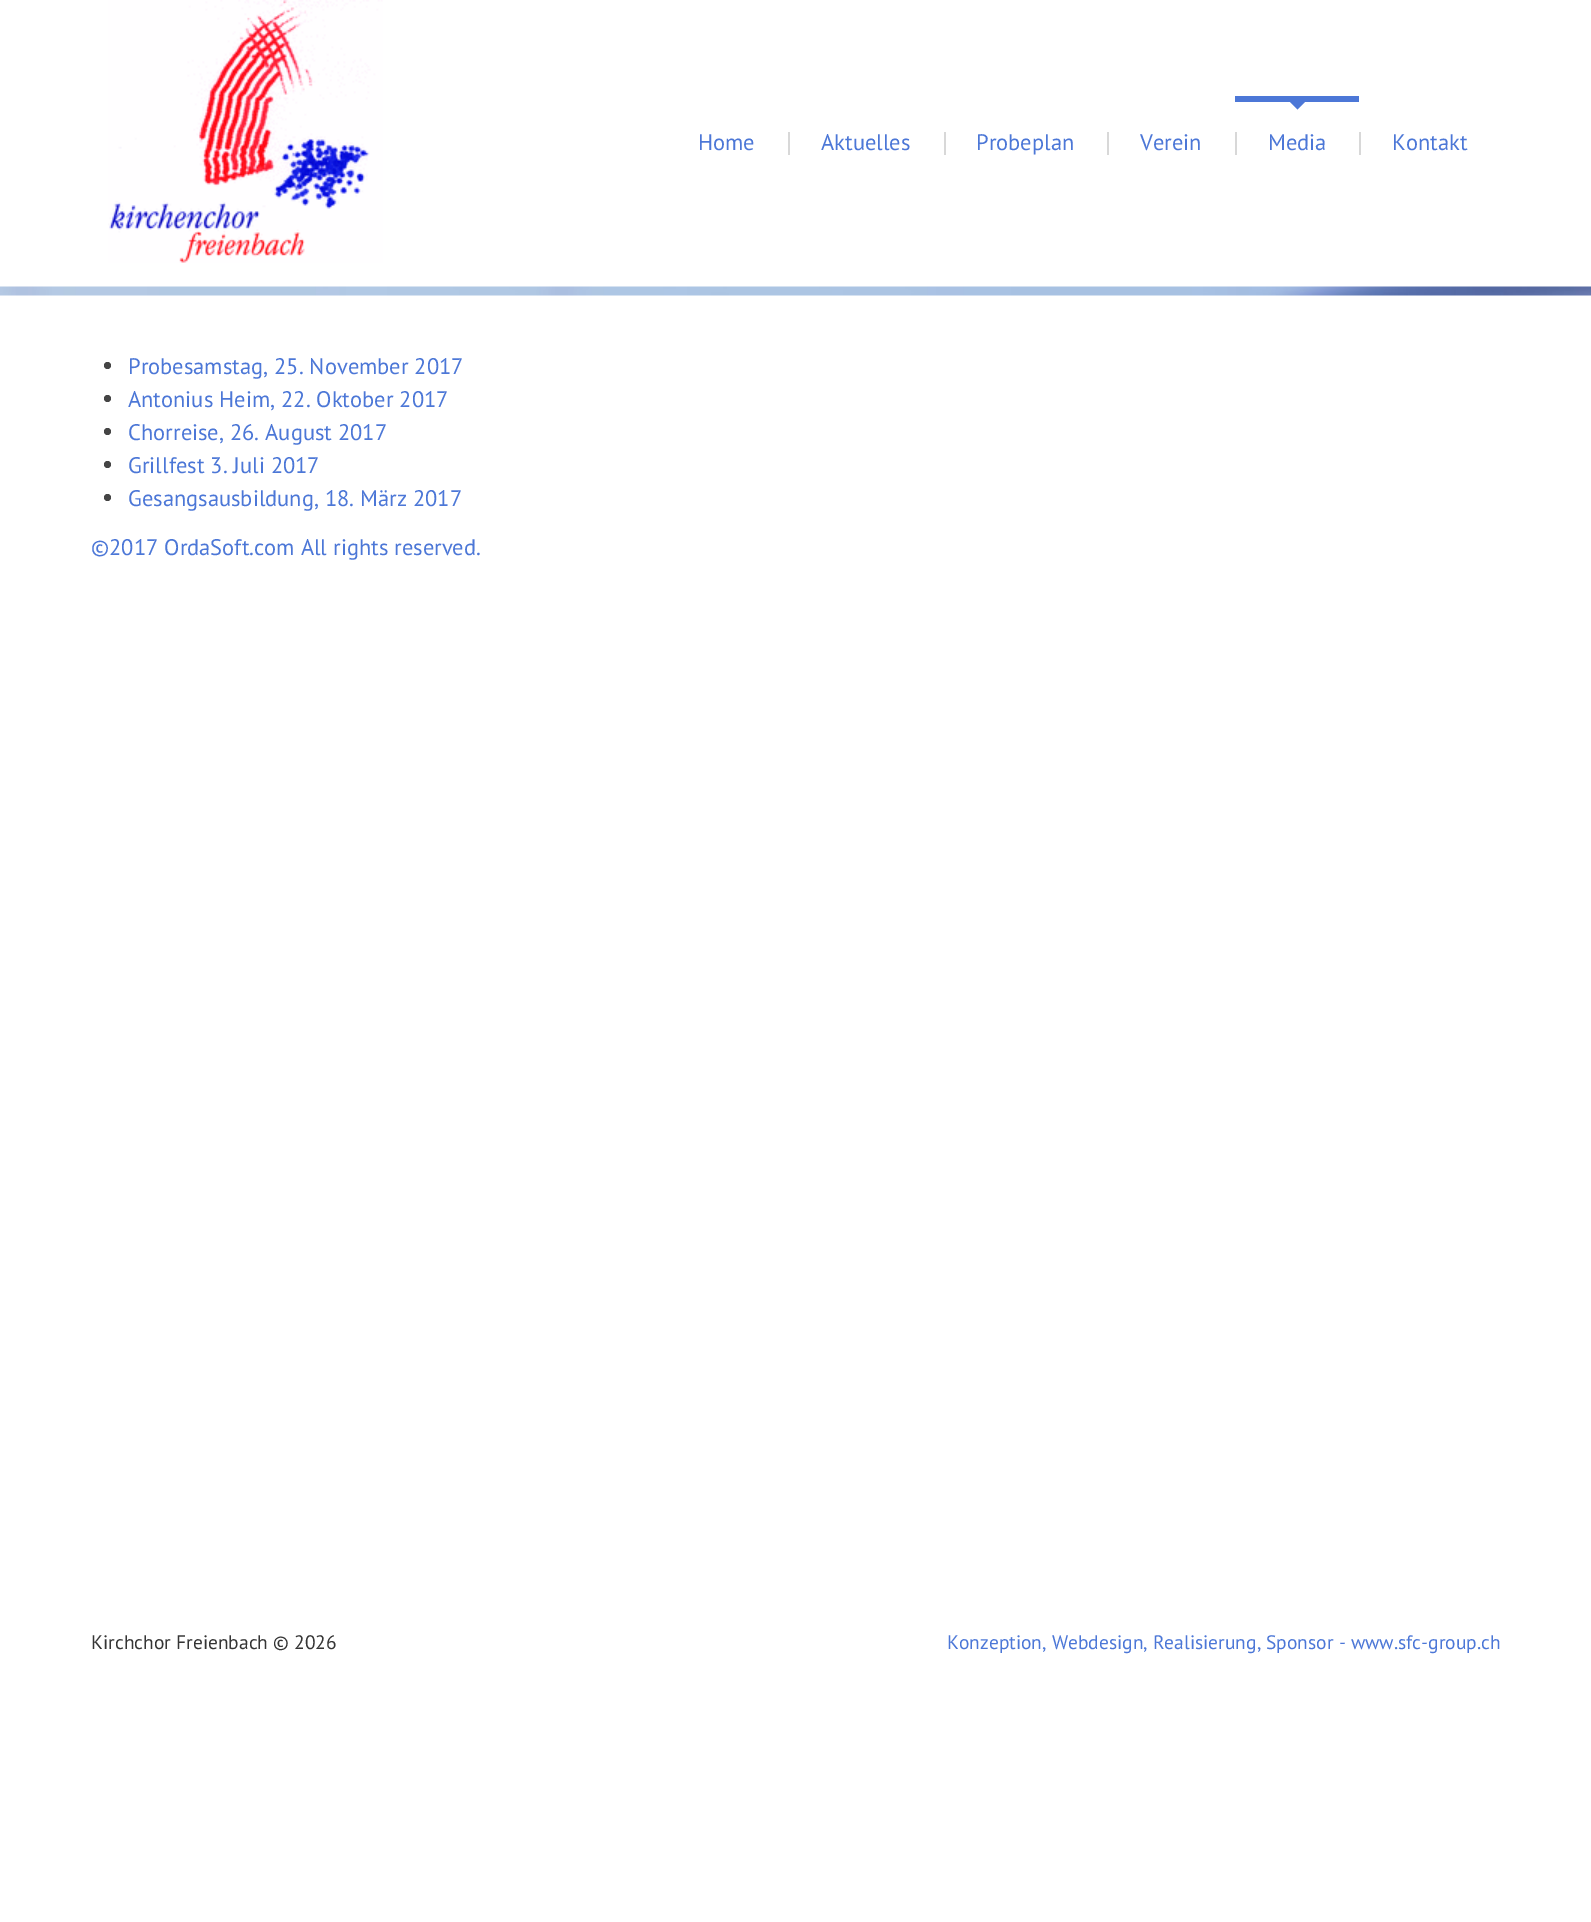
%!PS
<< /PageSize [1591 1922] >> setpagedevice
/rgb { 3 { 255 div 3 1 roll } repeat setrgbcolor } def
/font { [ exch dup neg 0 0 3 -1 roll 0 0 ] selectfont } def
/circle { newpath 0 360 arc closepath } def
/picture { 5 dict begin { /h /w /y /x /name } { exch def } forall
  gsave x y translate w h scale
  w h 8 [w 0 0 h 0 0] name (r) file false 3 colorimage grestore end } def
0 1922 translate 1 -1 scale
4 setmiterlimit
255 255 255 rgb
0 0 1591 1922 rectfill
(img/1.rgb) 108 0 275 263 picture
[
  [788 132 2 23 216 216 216]
  [944 132 2 23 216 216 216]
  [1107 132 2 23 216 216 216]
  [1235 132 2 23 216 216 216]
  [1235 96 124 6 76 119 215]
] { aload pop rgb rectfill } forall
1290 102 moveto 1305 102 lineto 1297.5 109.5 lineto closepath fill
216 216 216 rgb
1359 132 2 23 rectfill
(img/2.rgb) 0 286 1591 10 picture
69 69 69 rgb
107.5 365.5 3.5 circle fill
107.5 398.5 3.5 circle fill
107.5 431.5 3.5 circle fill
107.5 464.5 3.5 circle fill
107.5 497.5 3.5 circle fill
/PTSans-Regular 22.5 font
76 119 215 rgb
[
  [(Home) 698 150]
  [(Aktuelles) 821 150]
  [(Probeplan) 976 150]
  [(Verein) 1140 150]
  [(Media) 1268 150]
  [(Kontakt) 1392 150]
  [(Probesamstag, 25. November 2017) 128 374]
  [(Antonius Heim, 22. Oktober 2017) 128 407]
  [(Chorreise, 26. August 2017) 128 440]
  [(Grillfest 3. Juli 2017) 128 473]
  [(Gesangsausbildung, 18. März 2017) 128 506]
  [(©2017 OrdaSoft.com All rights reserved.) 91 555]
] { aload pop moveto show } forall
/PTSans-Regular 19.5 font
53 53 53 rgb
91 1649 moveto (Kirchchor Freienbach © 2026) show
76 119 215 rgb
947 1649 moveto (Konzeption, Webdesign, Realisierung, Sponsor - www.sfc-group.ch) show
showpage
